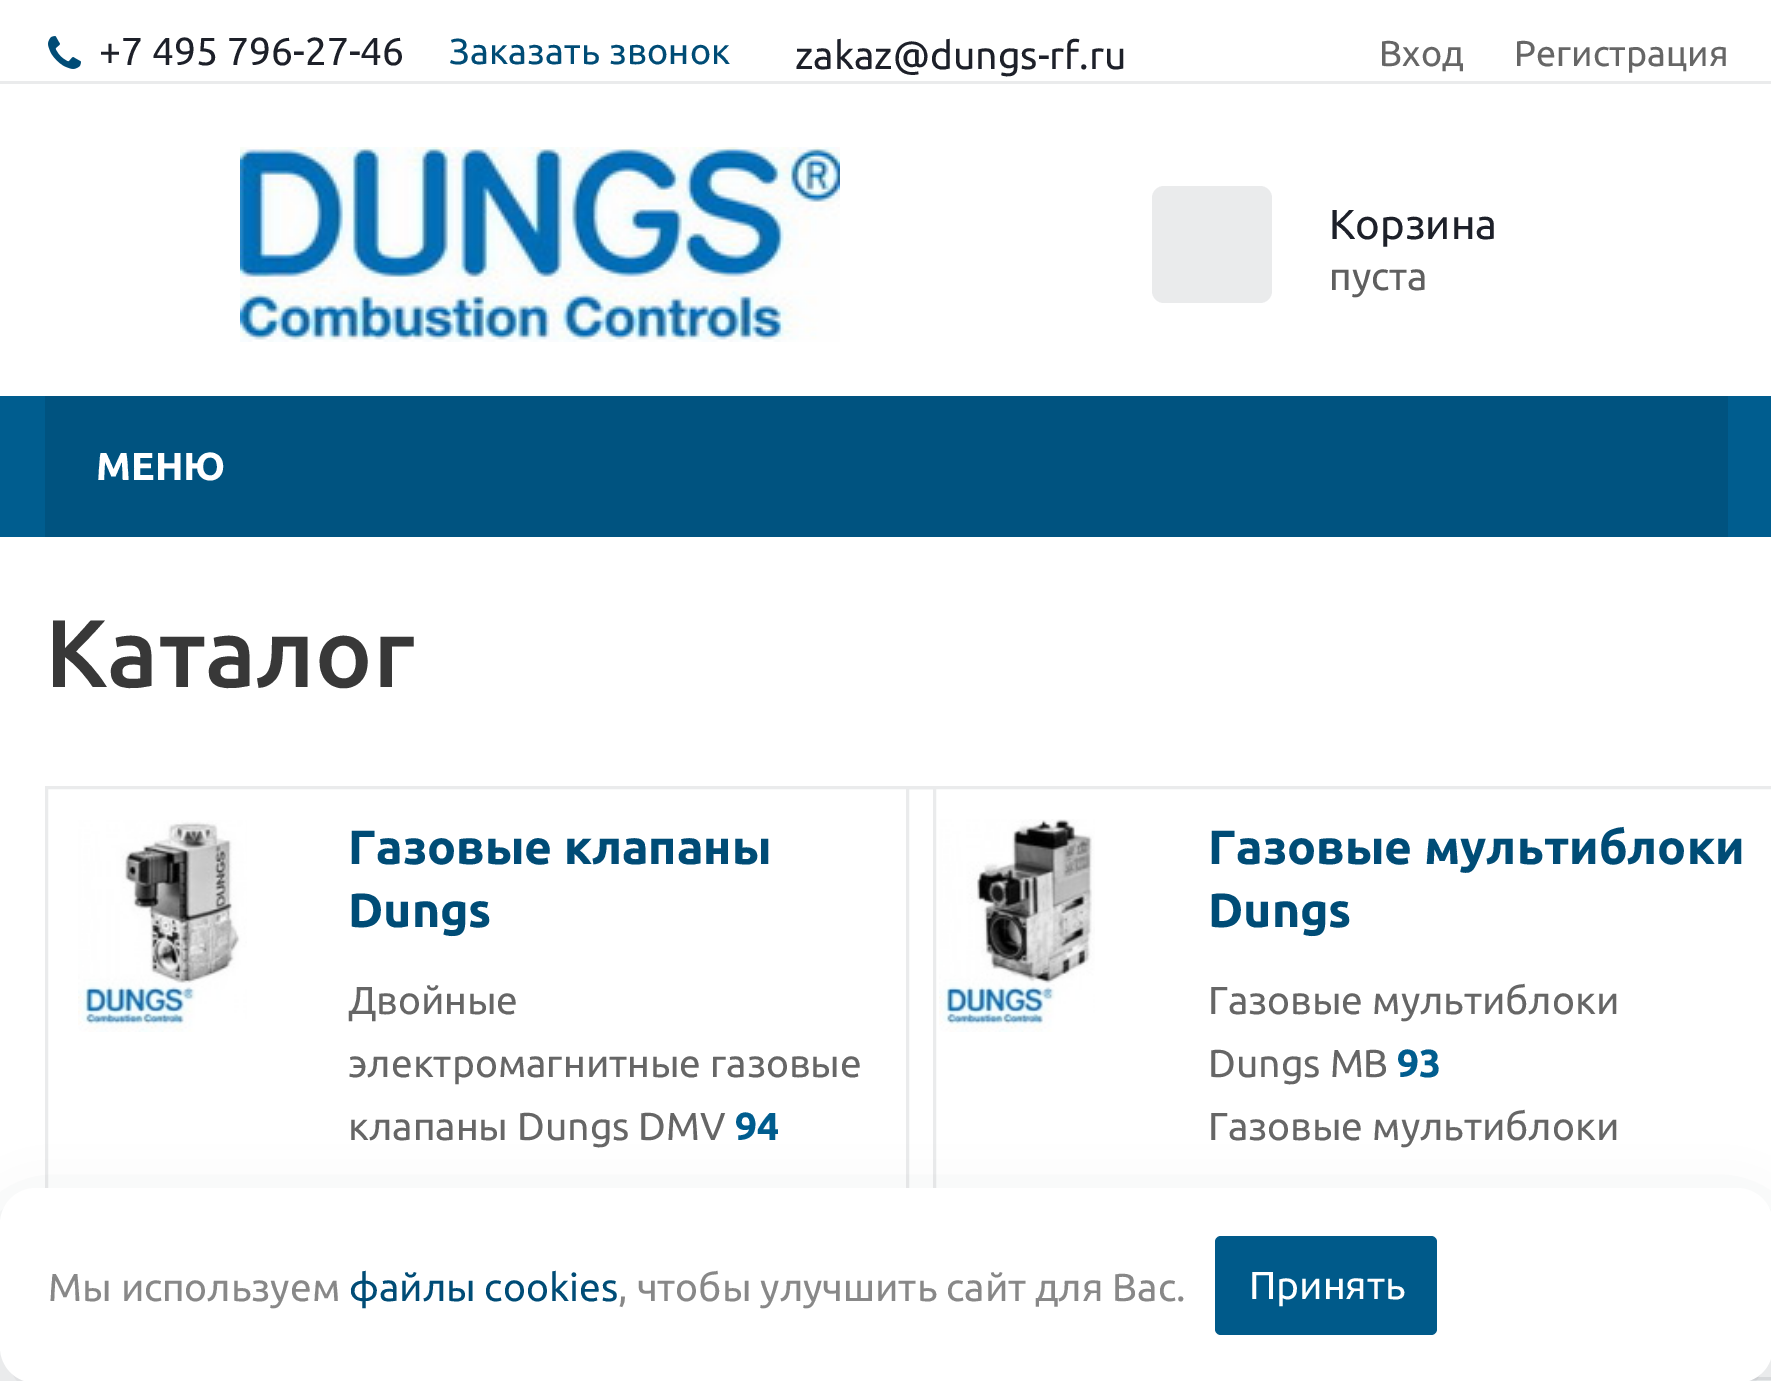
%!PS
<< /PageSize [1771 1381] /PageUsesTransparency true >> setpagedevice
/rgb { 3 { 255 div 3 1 roll } repeat setrgbcolor } def
/font { [ exch dup neg 0 0 3 -1 roll 0 0 ] selectfont } def
/alpha { dup .setfillconstantalpha .setstrokeconstantalpha } def
/roundrect { 5 dict begin { /r /h /w /y /x } { exch def } forall
  x r add y moveto x w add y 2 copy h add r arct x w add y h add x 1 index r arct
  x y h add x y r arct x y 2 copy exch w add exch r arct closepath end } def
/shadow { 12 dict begin { /a /b /q /h /w /y /x } { exch def } forall gsave /was 0 def
  9 -2 -9 { dup b mul 4 div /e exch def 1 sub .425 mul 2.718 exch exp 1 add a .99 .min exch div /now exch def
    1 1 now sub 1 was sub div sub alpha /was now def
    w h .min e 2 mul add 0 gt { x e sub y e sub w e 2 mul add h e 2 mul add
      q e add b .6 mul add w h .min 2 div e add .min 0 .max roundrect fill } if } for grestore end } def
/picture { 5 dict begin { /h /w /y /x /name } { exch def } forall
  gsave x y translate w h scale
  w h 8 [w 0 0 h 0 0] name (r) file false 3 colorimage grestore end } def
0 .pushpdf14devicefilter
0 1381 translate 1 -1 scale
4 setmiterlimit
255 255 255 rgb
0 0 1771 1381 rectfill
(img/1.rgb) 48 36 33 33 picture
234 235 236 rgb
0 81 1771 3 rectfill
(img/2.rgb) 240 147 600 195 picture
1152 186 120 117 12 roundrect fill
0 93 143 rgb
0 396 1771 141 rectfill
0 83 128 rgb
45 396 1683 141 rectfill
234 235 236 rgb
3 setlinewidth
46.5 787.5 888 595 rectstroke
(img/3.rgb) 78 820 169 212 picture
907.5 787.5 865 591 rectstroke
(img/4.rgb) 939 819 156 213 picture
68 75 91 rgb
0 1212 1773 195 36 30 0.24 shadow
255 255 255 rgb
0 1188 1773 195 36 roundrect fill
0 90 138 rgb
1215 1236 222 99 6 roundrect fill
/Ubuntu-Regular 39 font
29 32 41 rgb
99 65 moveto (+7 495 796-27-46) show
/Ubuntu-Regular 36 font
0 76 118 rgb
449 64 moveto 0.25 0 (Заказать звонок) ashow
/Ubuntu-Regular 39 font
29 32 41 rgb
795 69 moveto (zakaz@dungs-rf.ru) show
/Ubuntu-Regular 36 font
102 102 102 rgb
1379 66 moveto (Вход) show
1514 66 moveto (Регистрация) show
/Ubuntu-Regular 42 font
29 32 41 rgb
1329 239 moveto (Корзина) show
/Ubuntu-Regular 39 font
95 95 95 rgb
1329 290 moveto (пуста) show
/Ubuntu-Bold 39 font
255 255 255 rgb
96 480 moveto (МЕНЮ) show
/Ubuntu-Medium 96 font
56 56 56 rgb
45 687 moveto (Каталог) show
/Ubuntu-Bold 48 font
0 76 118 rgb
348 864 moveto (Газовые клапаны) show
348 927 moveto (Dungs) show
/Ubuntu-Regular 39 font
102 102 102 rgb
[
  [(Двойные) 348 1014]
  [(электромагнитные газовые) 348 1077]
  [(клапаны Dungs DMV) 348 1140]
] { aload pop moveto show } forall
/Ubuntu-Bold 39 font
0 93 143 rgb
735 1140 moveto (94) show
/Ubuntu-Bold 48 font
0 76 118 rgb
1208 864 moveto (Газовые мультиблоки) show
1208 927 moveto (Dungs) show
/Ubuntu-Regular 39 font
102 102 102 rgb
1208 1014 moveto (Газовые мультиблоки) show
1208 1077 moveto (Dungs MB) show
/Ubuntu-Bold 39 font
0 93 143 rgb
1397 1077 moveto (93) show
/Ubuntu-Regular 39 font
102 102 102 rgb
1208 1140 moveto (Газовые мультиблоки) show
136 136 136 rgb
48 1301 moveto (Мы используем) show
0 76 118 rgb
349 1301 moveto (файлы cookies) show
136 136 136 rgb
618 1301 moveto (, чтобы улучшить сайт для Вас.) show
255 255 255 rgb
1249 1299 moveto (Принять) show
.poppdf14devicefilter showpage
